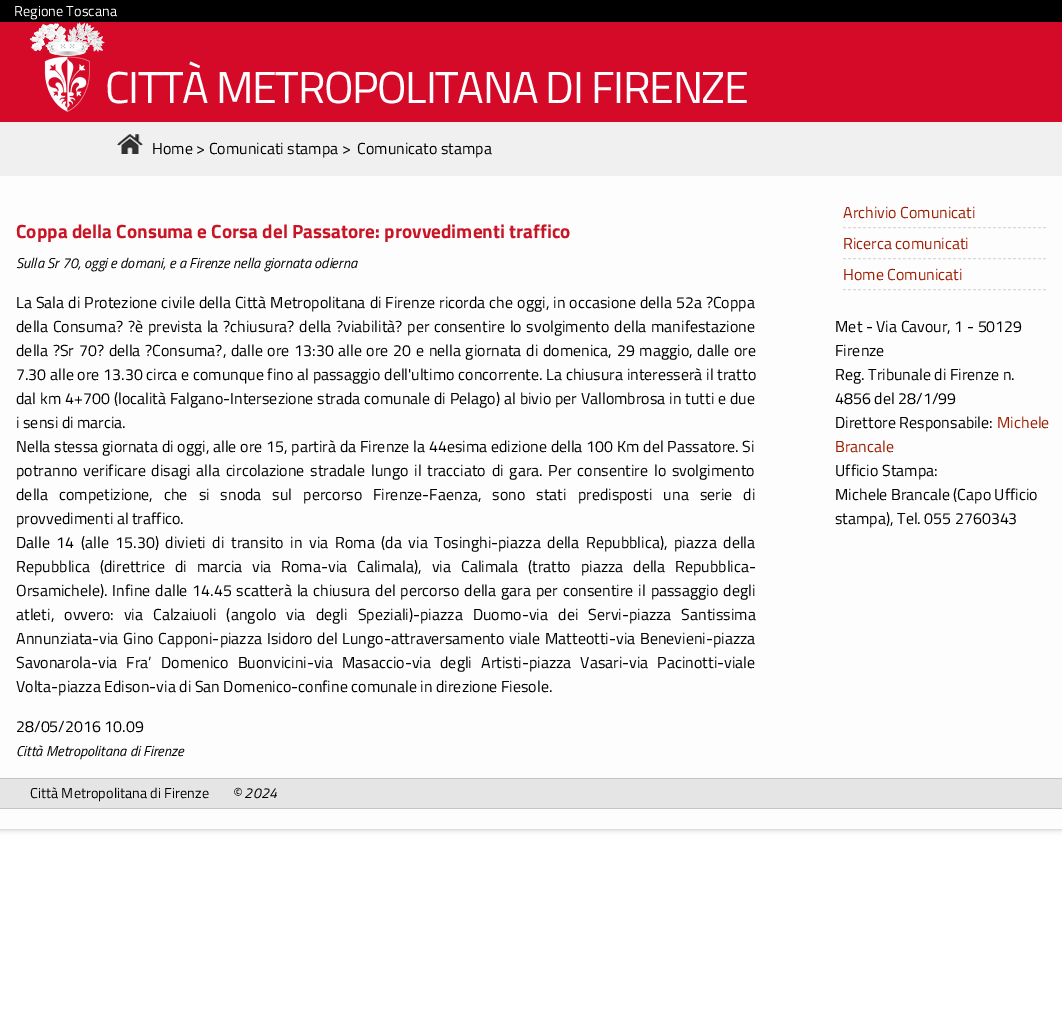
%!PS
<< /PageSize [1062 1032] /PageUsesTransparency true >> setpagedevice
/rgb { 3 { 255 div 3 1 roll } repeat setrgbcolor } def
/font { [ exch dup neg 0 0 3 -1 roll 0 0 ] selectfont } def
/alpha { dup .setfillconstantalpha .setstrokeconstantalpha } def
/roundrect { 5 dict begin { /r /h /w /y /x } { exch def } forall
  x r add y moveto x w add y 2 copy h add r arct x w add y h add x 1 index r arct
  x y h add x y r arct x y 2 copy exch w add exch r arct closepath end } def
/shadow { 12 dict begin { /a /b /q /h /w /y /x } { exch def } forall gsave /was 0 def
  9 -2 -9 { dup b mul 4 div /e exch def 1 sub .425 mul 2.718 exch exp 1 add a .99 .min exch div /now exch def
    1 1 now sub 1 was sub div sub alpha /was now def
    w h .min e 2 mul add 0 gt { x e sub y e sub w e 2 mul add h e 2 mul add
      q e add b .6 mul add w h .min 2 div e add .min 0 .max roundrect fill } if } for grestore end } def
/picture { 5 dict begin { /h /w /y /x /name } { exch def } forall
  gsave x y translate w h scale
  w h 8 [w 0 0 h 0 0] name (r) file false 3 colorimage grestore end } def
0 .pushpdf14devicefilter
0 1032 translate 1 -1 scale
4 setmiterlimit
255 255 255 rgb
0 0 1062 1032 rectfill
180 180 180 rgb
0 0 1062 829 0 3 1 shadow
[
  [0 176 1062 653 253 253 253]
  [0 22 1062 100 213 10 40]
  [0 0 1062 22 0 0 0]
] { aload pop rgb rectfill } forall
(img/1.rgb) 30 22 75 90 picture
240 240 240 rgb
0 122 1062 54 rectfill
(img/2.rgb) 117 134 26 20 picture
217 217 217 rgb
[3 2] 0 setdash
843 227.5 moveto 1046 227.5 lineto stroke
843 258.5 moveto 1046 258.5 lineto stroke
843 289.5 moveto 1046 289.5 lineto stroke
[
  [0 779 1062 29 229 229 229]
  [0 778 1062 1 197 197 197]
  [0 808 1062 1 197 197 197]
] { aload pop rgb rectfill } forall
/TitilliumWeb-Regular 14.4 font
255 255 255 rgb
14 16 moveto (Regione Toscana) show
/TitilliumWeb-Regular 44.75 font
105 103 moveto -1.35 0 (CITTÀ METROPOLITANA DI FIRENZE) ashow
/TitilliumWeb-Regular 16 font
0 0 0 rgb
152 154 moveto (Home > Comunicati stampa >) show
357 154 moveto (Comunicato stampa) show
/TitilliumWeb-Bold 19.2 font
200 22 39 rgb
16 238 moveto (Coppa della Consuma e Corsa del Passatore: provvedimenti traffico) show
/TitilliumWeb-Italic 14.4 font
0 0 0 rgb
16 268 moveto (Sulla Sr 70, oggi e domani, e a Firenze nella giornata odierna) show
/TitilliumWeb-Regular 16 font
16 308 moveto 0.5 0 32 (La Sala di Protezione civile della Città Metropolitana di Firenze ricorda che oggi, in occasione della 52a ?Coppa) widthshow
16 332 moveto 1.25 0 32 (della Consuma? ?è prevista la ?chiusura? della ?viabilità? per consentire lo svolgimento della manifestazione) widthshow
16 356 moveto 1.2 0 32 (della ?Sr 70? della ?Consuma?, dalle ore 13:30 alle ore 20 e nella giornata di domenica, 29 maggio, dalle ore) widthshow
16 380 moveto 0.25 0 32 (7.30 alle ore 13.30 circa e comunque fino al passaggio dell'ultimo concorrente. La chiusura interesserà il tratto) widthshow
16 404 moveto 0.4 0 32 (dal km 4+700 \(località Falgano-Intersezione strada comunale di Pelago\) al bivio per Vallombrosa in tutti e due) widthshow
16 428 moveto (i sensi di marcia.) show
16 452 moveto 0.25 0 32 (Nella stessa giornata di oggi, alle ore 15, partirà da Firenze la 44esima edizione della 100 Km del Passatore. Si) widthshow
16 476 moveto 2.25 0 32 (potranno verificare disagi alla circolazione stradale lungo il tracciato di gara. Per consentire lo svolgimento) widthshow
16 500 moveto 7.5 0 32 (della competizione, che si snoda sul percorso Firenze-Faenza, sono stati predisposti una serie di) widthshow
16 524 moveto (provvedimenti al traffico.) show
16 548 moveto 3.1 0 32 (Dalle 14 \(alle 15.30\) divieti di transito in via Roma \(da via Tosinghi-piazza della Repubblica\), piazza della) widthshow
16 572 moveto 6.4 0 32 (Repubblica \(direttrice di marcia via Roma-via Calimala\), via Calimala \(tratto piazza della Repubblica-) widthshow
16 596 moveto 1.4 0 32 (Orsamichele\). Infine dalle 14.45 scatterà la chiusura del percorso della gara per consentire il passaggio degli) widthshow
16 620 moveto 6.6 0 32 (atleti, ovvero: via Calzaiuoli \(angolo via degli Speziali\)-piazza Duomo-via dei Servi-piazza Santissima) widthshow
16 644 moveto 1.25 0 32 (Annunziata-via Gino Capponi-piazza Isidoro del Lungo-attraversamento viale Matteotti-via Benevieni-piazza) widthshow
16 668 moveto 5.5 0 32 (Savonarola-via Fra’ Domenico Buonvicini-via Masaccio-via degli Artisti-piazza Vasari-via Pacinotti-viale) widthshow
16 692 moveto (Volta-piazza Edison-via di San Domenico-confine comunale in direzione Fiesole.) show
16 732 moveto (28/05/2016 10.09) show
/TitilliumWeb-Italic 14.4 font
16 756 moveto (Città Metropolitana di Firenze) show
/TitilliumWeb-Regular 16 font
158 31 3 rgb
[
  [(Archivio Comunicati) 843 218]
  [(Ricerca comunicati) 843 249]
  [(Home Comunicati) 843 280]
] { aload pop moveto show } forall
0 0 0 rgb
[
  [(Met - Via Cavour, 1 - 50129) 835 332]
  [(Firenze) 835 356]
  [(Reg. Tribunale di Firenze n.) 835 380]
  [(4856 del 28/1/99) 835 404]
  [(Direttore Responsabile:) 835 428]
] { aload pop moveto show } forall
158 31 3 rgb
997 428 moveto (Michele) show
835 452 moveto (Brancale) show
0 0 0 rgb
[
  [(Ufficio Stampa:) 835 476]
  [(Michele Brancale \(Capo Ufficio) 835 500]
  [(stampa\), Tel. 055 2760343) 835 524]
] { aload pop moveto show } forall
/TitilliumWeb-Regular 14.4 font
30 798 moveto (Città Metropolitana di Firenze) show
/TitilliumWeb-Italic 14.4 font
232 798 moveto (© 2024) show
.poppdf14devicefilter showpage
